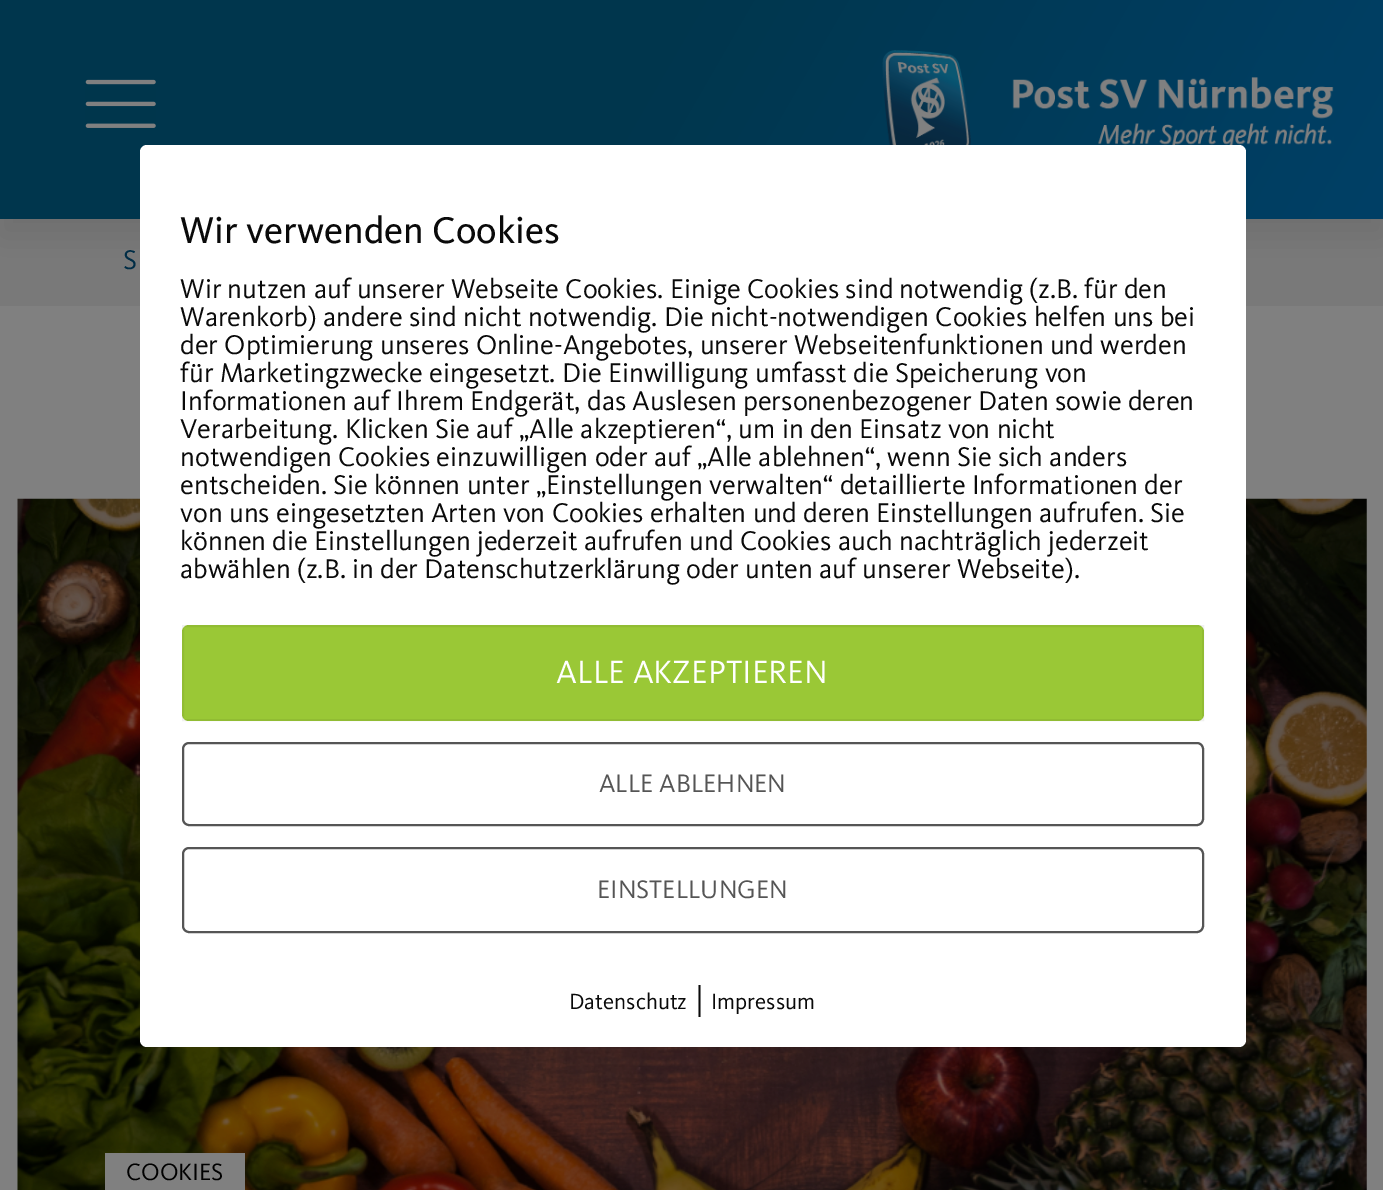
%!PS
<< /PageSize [1383 1190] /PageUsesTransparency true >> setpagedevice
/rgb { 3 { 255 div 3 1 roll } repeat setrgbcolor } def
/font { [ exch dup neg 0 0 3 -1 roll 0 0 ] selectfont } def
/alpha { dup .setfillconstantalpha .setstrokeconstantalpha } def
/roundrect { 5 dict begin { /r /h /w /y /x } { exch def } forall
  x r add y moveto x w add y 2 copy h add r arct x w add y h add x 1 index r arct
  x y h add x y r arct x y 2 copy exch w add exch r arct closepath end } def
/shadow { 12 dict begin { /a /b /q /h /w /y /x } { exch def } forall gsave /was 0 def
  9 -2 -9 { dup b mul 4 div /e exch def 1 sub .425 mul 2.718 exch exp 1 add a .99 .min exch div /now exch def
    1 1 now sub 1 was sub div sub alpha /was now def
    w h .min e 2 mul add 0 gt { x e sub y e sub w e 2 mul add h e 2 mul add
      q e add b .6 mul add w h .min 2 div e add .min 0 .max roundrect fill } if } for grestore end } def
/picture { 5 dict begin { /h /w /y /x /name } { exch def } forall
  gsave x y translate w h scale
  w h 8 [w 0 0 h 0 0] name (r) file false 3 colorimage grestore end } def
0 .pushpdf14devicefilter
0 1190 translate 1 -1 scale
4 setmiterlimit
128 128 128 rgb
0 0 1383 1190 rectfill
121 121 121 rgb
0 219 1383 87 rectfill
0 0 0 rgb
0 18 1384 218 0 17.5 0.1 shadow
gsave 0 0 moveto 1383 0 lineto 1383 219 lineto 0 219 lineto closepath clip newpath
<< /ShadingType 2 /ColorSpace /DeviceRGB /Coords [126 -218 1259 436] /Extend [true true] /Function << /FunctionType 3 /Domain [0 1] /Functions [<< /FunctionType 2 /Domain [0 1] /C0 [0 0.212 0.302] /C1 [0 0.212 0.302] /N 1 >> << /FunctionType 2 /Domain [0 1] /C0 [0 0.212 0.302] /C1 [0 0.251 0.4] /N 1 >>] /Bounds [0.45] /Encode [0 1 0 1] >> >> shfill grestore
(img/1.rgb) 85 79 71 49 picture
(img/2.rgb) 882 50 452 95 picture
(img/3.rgb) 17 498 1350 692 picture
255 255 255 rgb
140 145 1106 902 7 roundrect fill
154 200 54 rgb
182 625 1022 96 7 roundrect fill
0.06 alpha
0 0 0 rgb
2 setlinewidth
183 626 1020 94 rectstroke
1 alpha
85 85 85 rgb
183 743 1020 82 6 roundrect stroke
183 848 1020 84 6 roundrect stroke
128 128 128 rgb
105 1153 140 37 rectfill
/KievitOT-Regular 28 font
0 45 70 rgb
123 269 moveto (S) show
/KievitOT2-Regular 38.5 font
10 10 10 rgb
180 243 moveto (Wir verwenden Cookies) show
/KievitOT-Regular 28 font
[
  [(Wir nutzen auf unserer Webseite Cookies. Einige Cookies sind notwendig \(z.B. für den) 180 298]
  [(Warenkorb\) andere sind nicht notwendig. Die nicht-notwendigen Cookies helfen uns bei) 180 326]
  [(der Optimierung unseres Online-Angebotes, unserer Webseitenfunktionen und werden) 180 354]
  [(für Marketingzwecke eingesetzt. Die Einwilligung umfasst die Speicherung von) 180 382]
  [(Informationen auf Ihrem Endgerät, das Auslesen personenbezogener Daten sowie deren) 180 410]
  [(Verarbeitung. Klicken Sie auf „Alle akzeptieren“, um in den Einsatz von nicht) 180 438]
  [(notwendigen Cookies einzuwilligen oder auf „Alle ablehnen“, wenn Sie sich anders) 180 466]
  [(entscheiden. Sie können unter „Einstellungen verwalten“ detaillierte Informationen der) 180 494]
  [(von uns eingesetzten Arten von Cookies erhalten und deren Einstellungen aufrufen. Sie) 180 522]
  [(können die Einstellungen jederzeit aufrufen und Cookies auch nachträglich jederzeit) 180 550]
  [(abwählen \(z.B. in der Datenschutzerklärung oder unten auf unserer Webseite\).) 180 578]
] { aload pop moveto show } forall
/KievitOT-Regular 33.25 font
255 255 255 rgb
556 683 moveto (ALLE AKZEPTIEREN) show
/KievitOT-Regular 26.25 font
85 85 85 rgb
599 792 moveto (ALLE ABLEHNEN) show
597 898 moveto (EINSTELLUNGEN) show
/KievitOT-Regular 22.75 font
10 10 10 rgb
569 1009 moveto (Datenschutz) show
/KievitOT-Regular 32 font
695 1009 moveto (|) show
/KievitOT-Regular 22.75 font
711 1009 moveto (Impressum) show
/KievitOT-Regular 24.5 font
0 0 0 rgb
126 1180 moveto (COOKIES) show
.poppdf14devicefilter showpage
